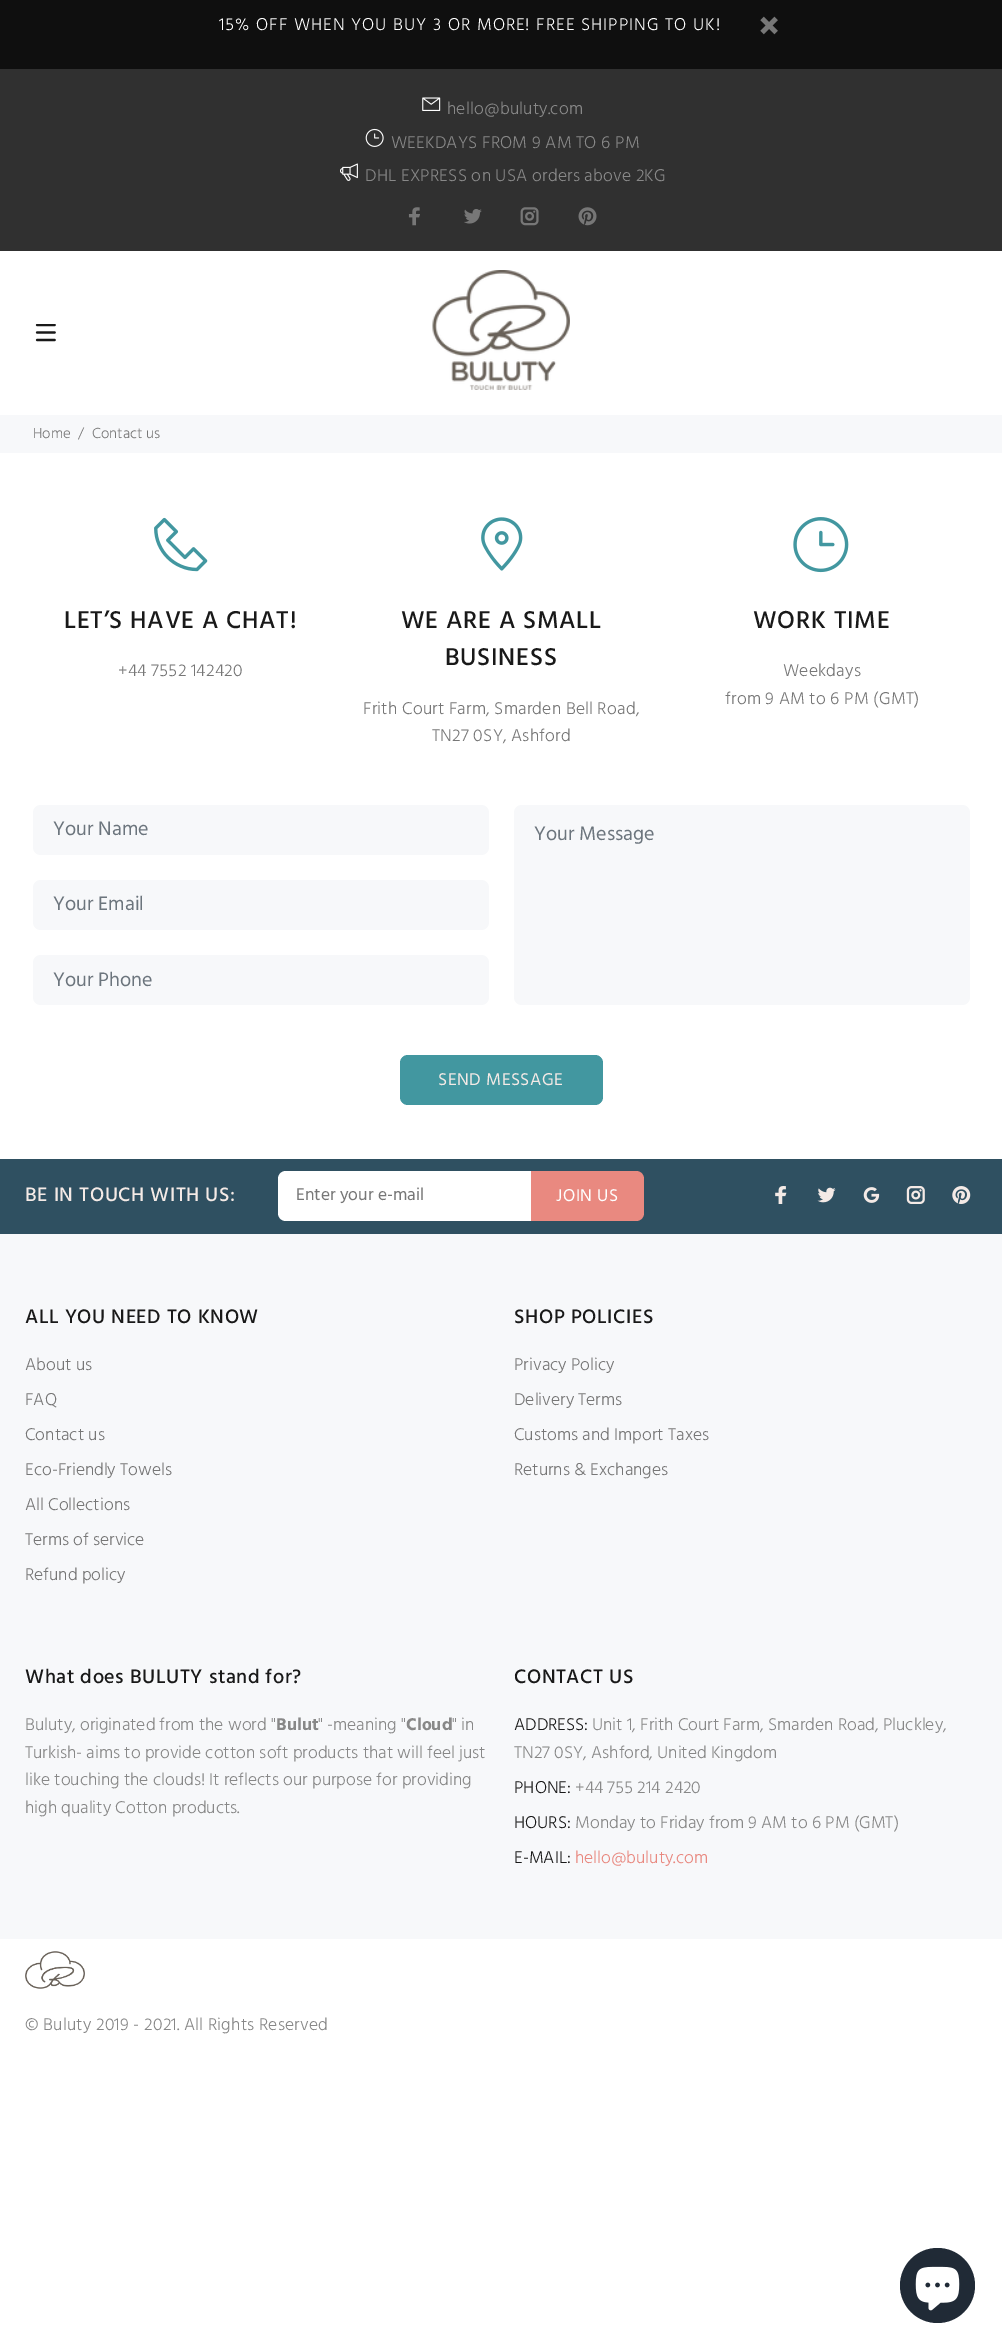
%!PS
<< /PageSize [1002 2348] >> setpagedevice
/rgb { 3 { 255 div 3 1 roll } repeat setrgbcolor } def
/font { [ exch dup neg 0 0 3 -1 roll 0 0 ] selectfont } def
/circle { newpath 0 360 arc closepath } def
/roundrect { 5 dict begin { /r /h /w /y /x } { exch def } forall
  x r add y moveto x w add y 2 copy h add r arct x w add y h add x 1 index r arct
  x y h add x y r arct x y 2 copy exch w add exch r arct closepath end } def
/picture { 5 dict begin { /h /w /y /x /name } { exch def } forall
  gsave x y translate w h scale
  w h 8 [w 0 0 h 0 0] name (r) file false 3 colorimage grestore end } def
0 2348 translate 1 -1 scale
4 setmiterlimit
255 255 255 rgb
0 0 1002 2348 rectfill
15 15 15 rgb
0 0 1002 69 rectfill
(img/1.rgb) 760 16 18 19 picture
48 48 48 rgb
0 69 1002 182 rectfill
(img/2.rgb) 422 97 19 14 picture
(img/3.rgb) 365 128 19 19 picture
(img/4.rgb) 340 163 18 18 picture
(img/5.rgb) 408 207 12 19 picture
(img/6.rgb) 464 209 18 15 picture
(img/7.rgb) 520 207 19 19 picture
(img/8.rgb) 578 207 19 19 picture
(img/9.rgb) 35 324 21 18 picture
(img/10.rgb) 432 270 138 120 picture
247 248 250 rgb
0 415 1002 38 rectfill
(img/11.rgb) 154 517 54 55 picture
(img/12.rgb) 481 517 42 54 picture
(img/13.rgb) 793 517 56 56 picture
33 805 456 50 8 roundrect fill
33 880 456 50 8 roundrect fill
33 955 456 50 8 roundrect fill
514 805 456 200 8 roundrect fill
66 151 160 rgb
400 1055 203 50 8 roundrect fill
247 248 250 rgb
0 1234 1002 705 rectfill
47 80 97 rgb
0 1159 1002 75 rectfill
255 255 255 rgb
286 1171 moveto 531 1171 lineto 531 1221 lineto 286 1221 lineto 281.5 1221 278 1217.5 278 1213 curveto 278 1179 lineto 278 1174.5 281.5 1171 286 1171 curveto closepath fill
233 137 128 rgb
531 1171 moveto 636 1171 lineto 640.5 1171 644 1174.5 644 1179 curveto 644 1213 lineto 644 1217.5 640.5 1221 636 1221 curveto 531 1221 lineto closepath fill
(img/14.rgb) 775 1186 12 18 picture
(img/15.rgb) 817 1187 19 16 picture
(img/16.rgb) 863 1187 17 16 picture
(img/17.rgb) 906 1186 19 18 picture
(img/18.rgb) 952 1186 19 18 picture
(img/19.rgb) 25 1951 60 38 picture
32 42 54 rgb
937.5 2285.5 37.5 circle fill
(img/20.rgb) 915 2266 45 45 picture
/Hind-Light 17.5 font
255 255 255 rgb
219 30 moveto 0.5 0 32 0.98 0 (15% OFF WHEN YOU BUY 3 OR MORE! FREE SHIPPING TO UK!) awidthshow
136 136 136 rgb
447 114 moveto 0.2 0 (hello@buluty.com) ashow
391 148 moveto 0.2 0 (WEEKDAYS FROM 9 AM TO 6 PM) ashow
365 181 moveto 0.2 0 (DHL EXPRESS on USA orders above 2KG) ashow
/Hind-Light 15 font
119 119 119 rgb
[
  [(Home) 33 438]
  [(/) 78 438]
  [(Contact us) 92 438]
] { aload pop moveto show } forall
/Hind-Medium 25 font
25 25 25 rgb
64 628 moveto 0.75 0 (LET’S HAVE A CHAT!) ashow
/Hind-Light 17.5 font
119 119 119 rgb
118 676 moveto 0.2 0 (+44 7552 142420) ashow
/Hind-Medium 25 font
25 25 25 rgb
401 628 moveto 0.75 0 (WE ARE A SMALL) ashow
445 665 moveto 0.75 0 (BUSINESS) ashow
/Hind-Light 17.5 font
119 119 119 rgb
363 714 moveto 0.2 0 (Frith Court Farm, Smarden Bell Road,) ashow
432 741 moveto 0.2 0 (TN27 0SY, Ashford) ashow
/Hind-Medium 25 font
25 25 25 rgb
753 628 moveto 0.75 0 (WORK TIME) ashow
/Hind-Light 17.5 font
119 119 119 rgb
783 676 moveto 0.2 0 (Weekdays) ashow
725 704 moveto 0.2 0 (from 9 AM to 6 PM \(GMT\)) ashow
/Hind-Regular 20 font
108 117 125 rgb
[
  [(Your Name) 53 835]
  [(Your Email) 53 910]
  [(Your Phone) 53 986]
  [(Your Message) 534 840]
] { aload pop moveto show } forall
/Hind-Regular 17.5 font
244 234 230 rgb
438 1085 moveto 0.5 0 (SEND MESSAGE) ashow
/Hind-Medium 20 font
25 1201 moveto 0.6 0 (BE IN TOUCH WITH US:) ashow
/Hind-Regular 17.5 font
119 119 119 rgb
296 1200 moveto (Enter your e-mail) show
255 255 255 rgb
556 1201 moveto 0.5 0 (JOIN US) ashow
/Hind-Medium 20 font
25 25 25 rgb
25 1323 moveto 0.6 0 (ALL YOU NEED TO KNOW) ashow
/Hind-Light 17.5 font
119 119 119 rgb
[
  [(About us) 25 1370]
  [(FAQ) 25 1405]
  [(Contact us) 25 1440]
  [(Eco-Friendly Towels) 25 1475]
  [(All Collections) 25 1510]
  [(Terms of service) 25 1545]
  [(Refund policy) 25 1580]
] { aload pop moveto show } forall
/Hind-Medium 20 font
25 25 25 rgb
514 1323 moveto 0.6 0 (SHOP POLICIES) ashow
/Hind-Light 17.5 font
119 119 119 rgb
[
  [(Privacy Policy) 514 1370]
  [(Delivery Terms) 514 1405]
  [(Customs and Import Taxes) 514 1440]
  [(Returns & Exchanges) 514 1475]
] { aload pop moveto show } forall
/Hind-Medium 20 font
25 25 25 rgb
25 1683 moveto 0.6 0 (What does BULUTY stand for?) ashow
/Hind-Light 17.5 font
136 136 136 rgb
25 1730 moveto (Buluty, originated from the word ") show
/Hind-Bold 17.5 font
276 1730 moveto (Bulut) show
/Hind-Light 17.5 font
318 1730 moveto (" -meaning ") show
/Hind-Bold 17.5 font
406 1730 moveto (Cloud) show
/Hind-Light 17.5 font
[
  [(" in) 452 1730]
  [(Turkish- aims to provide cotton soft products that will feel just) 25 1758]
  [(like touching the clouds! It reflects our purpose for providing) 25 1785]
  [(high quality Cotton products.) 25 1813]
] { aload pop moveto show } forall
/Hind-Medium 20 font
25 25 25 rgb
514 1683 moveto 0.6 0 (CONTACT US) ashow
/Hind-Light 17.5 font
514 1730 moveto (ADDRESS:) show
136 136 136 rgb
592 1730 moveto (Unit 1, Frith Court Farm, Smarden Road, Pluckley,) show
514 1758 moveto (TN27 0SY, Ashford, United Kingdom) show
25 25 25 rgb
514 1793 moveto (PHONE:) show
136 136 136 rgb
575 1793 moveto (+44 755 214 2420) show
25 25 25 rgb
514 1828 moveto (HOURS:) show
136 136 136 rgb
575 1828 moveto (Monday to Friday from 9 AM to 6 PM \(GMT\)) show
25 25 25 rgb
514 1863 moveto (E-MAIL:) show
233 137 128 rgb
575 1863 moveto (hello@buluty.com) show
136 136 136 rgb
25 2030 moveto 0.2 0 (© Buluty 2019 - 2021. All Rights Reserved) ashow
showpage
